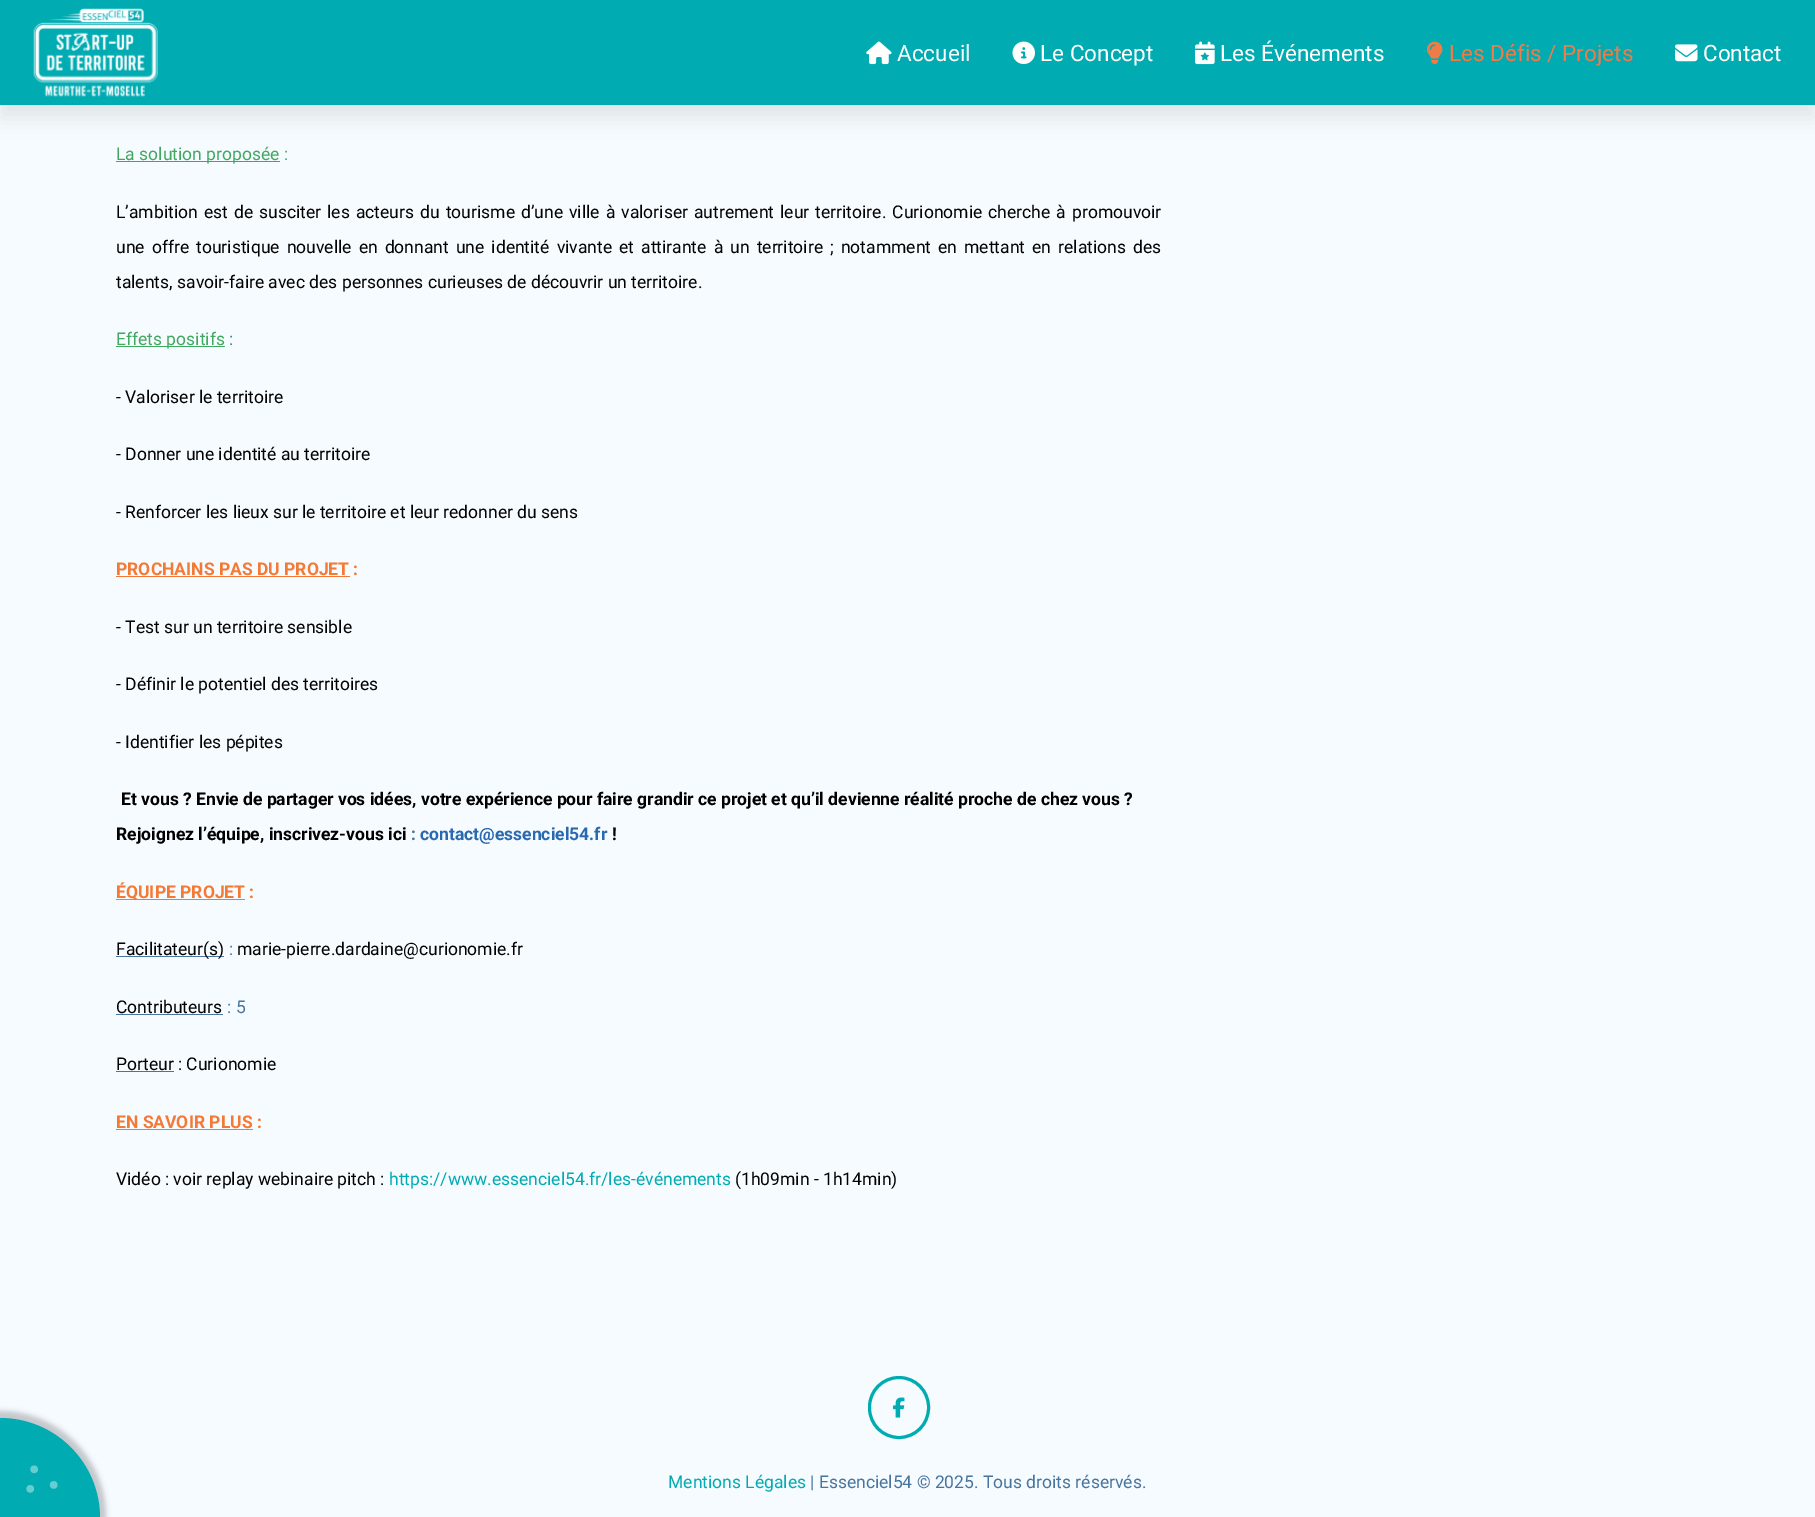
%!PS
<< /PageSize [1815 1517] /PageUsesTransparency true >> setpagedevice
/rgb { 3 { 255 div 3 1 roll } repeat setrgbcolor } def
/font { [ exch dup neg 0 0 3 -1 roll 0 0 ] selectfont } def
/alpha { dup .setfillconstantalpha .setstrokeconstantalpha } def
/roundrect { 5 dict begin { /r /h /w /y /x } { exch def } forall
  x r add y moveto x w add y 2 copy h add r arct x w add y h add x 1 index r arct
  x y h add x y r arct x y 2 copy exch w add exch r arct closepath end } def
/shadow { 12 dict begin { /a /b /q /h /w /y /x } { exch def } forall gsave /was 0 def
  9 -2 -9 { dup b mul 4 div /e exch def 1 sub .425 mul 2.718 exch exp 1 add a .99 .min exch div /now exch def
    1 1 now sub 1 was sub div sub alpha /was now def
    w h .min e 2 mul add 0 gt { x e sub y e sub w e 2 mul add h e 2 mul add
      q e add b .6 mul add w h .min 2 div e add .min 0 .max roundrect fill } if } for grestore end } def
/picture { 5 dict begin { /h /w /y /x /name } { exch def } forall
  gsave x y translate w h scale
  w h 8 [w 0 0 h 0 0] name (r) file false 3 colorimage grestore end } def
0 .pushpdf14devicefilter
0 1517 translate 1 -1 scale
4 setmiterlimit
246 251 255 rgb
0 0 1815 1517 rectfill
25 25 25 rgb
0 13 1815 105 0 9.5 0.1 shadow
0 171 178 rgb
0 0 1815 105 rectfill
(img/1.rgb) 33 8 125 89 picture
(img/2.rgb) 866 41 26 24 picture
(img/3.rgb) 1012 41 23 24 picture
(img/4.rgb) 1195 41 20 24 picture
(img/5.rgb) 1426 41 17 23 picture
(img/6.rgb) 1675 44 23 18 picture
[
  [116 161 164 1 65 168 95]
  [116 346 109 1 65 168 95]
  [116 576 234 1 243 121 52]
  [116 899 129 1 243 121 52]
  [116 956 108 1 71 117 157]
  [116 1014 107 1 71 117 157]
  [116 1071 58 1 71 117 157]
  [116 1129 137 1 243 121 52]
] { aload pop rgb rectfill } forall
0 0 0 rgb
-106 1411 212 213 106 2.5 0.2 shadow
0 171 178 rgb
-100 1418 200 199 100 roundrect fill
(img/7.rgb) 26 1465 32 28 picture
3 setlinewidth
869.5 1377.5 59 60 29.5 roundrect stroke
(img/8.rgb) 893 1397 12 21 picture
/Roboto-Regular 22.5 font
255 255 255 rgb
[
  [(Accueil) 897 61]
  [(Le Concept) 1040 61]
  [(Les Événements) 1220 61]
] { aload pop moveto show } forall
239 123 71 rgb
1449 61 moveto (Les Défis / Projets) show
255 255 255 rgb
1703 61 moveto (Contact) show
/Roboto-Regular 17.5 font
65 168 95 rgb
116 160 moveto (La solution proposée :) show
0 0 0 rgb
116 218 moveto 1.75 0 32 (L’ambition est de susciter les acteurs du tourisme d’une ville à valoriser autrement leur territoire. Curionomie cherche à promouvoir) widthshow
116 253 moveto 2.75 0 32 (une offre touristique nouvelle en donnant une identité vivante et attirante à un territoire ; notamment en mettant en relations des) widthshow
116 288 moveto (talents, savoir-faire avec des personnes curieuses de découvrir un territoire.) show
65 168 95 rgb
116 345 moveto (Effets positifs) show
71 117 157 rgb
229 345 moveto (:) show
0 0 0 rgb
[
  [(- Valoriser le territoire) 116 403]
  [(- Donner une identité au territoire) 116 460]
  [(- Renforcer les lieux sur le territoire et leur redonner du sens) 116 518]
] { aload pop moveto show } forall
/Roboto-Bold 17.5 font
243 121 52 rgb
116 575 moveto (PROCHAINS PAS DU PROJET :) show
/Roboto-Regular 17.5 font
0 0 0 rgb
[
  [(- Test sur un territoire sensible) 116 633]
  [(- Définir le potentiel des territoires) 116 690]
  [(- Identifier les pépites) 116 748]
] { aload pop moveto show } forall
/Roboto-Bold 17.5 font
121 805 moveto (Et vous ? Envie de partager vos idées, votre expérience pour faire grandir ce projet et qu’il devienne réalité proche de chez vous ?) show
116 840 moveto (Rejoignez l’équipe, inscrivez-vous ici) show
71 117 157 rgb
411 840 moveto (:) show
41 105 176 rgb
420 840 moveto (contact@essenciel54.fr) show
0 0 0 rgb
612 840 moveto (!) show
243 121 52 rgb
116 898 moveto (ÉQUIPE PROJET :) show
/Roboto-Regular 17.5 font
0 0 0 rgb
116 955 moveto (Facilitateur\(s\)) show
71 117 157 rgb
229 955 moveto (:) show
0 0 0 rgb
237 955 moveto (marie-pierre.dardaine@curionomie.fr) show
116 1013 moveto (Contributeurs) show
71 117 157 rgb
227 1013 moveto (: 5) show
0 0 0 rgb
116 1070 moveto (Porteur : Curionomie) show
/Roboto-Bold 17.5 font
243 121 52 rgb
116 1128 moveto (EN SAVOIR PLUS :) show
/Roboto-Regular 17.5 font
0 0 0 rgb
116 1185 moveto (Vidéo : voir replay webinaire pitch :) show
0 171 178 rgb
389 1185 moveto (https://www.essenciel54.fr/les-événements) show
0 0 0 rgb
735 1185 moveto (\(1h09min - 1h14min\)) show
0 171 178 rgb
668 1488 moveto (Mentions Légales) show
71 117 157 rgb
810 1488 moveto (| Essenciel54 © 2025. Tous droits réservés.) show
.poppdf14devicefilter showpage
